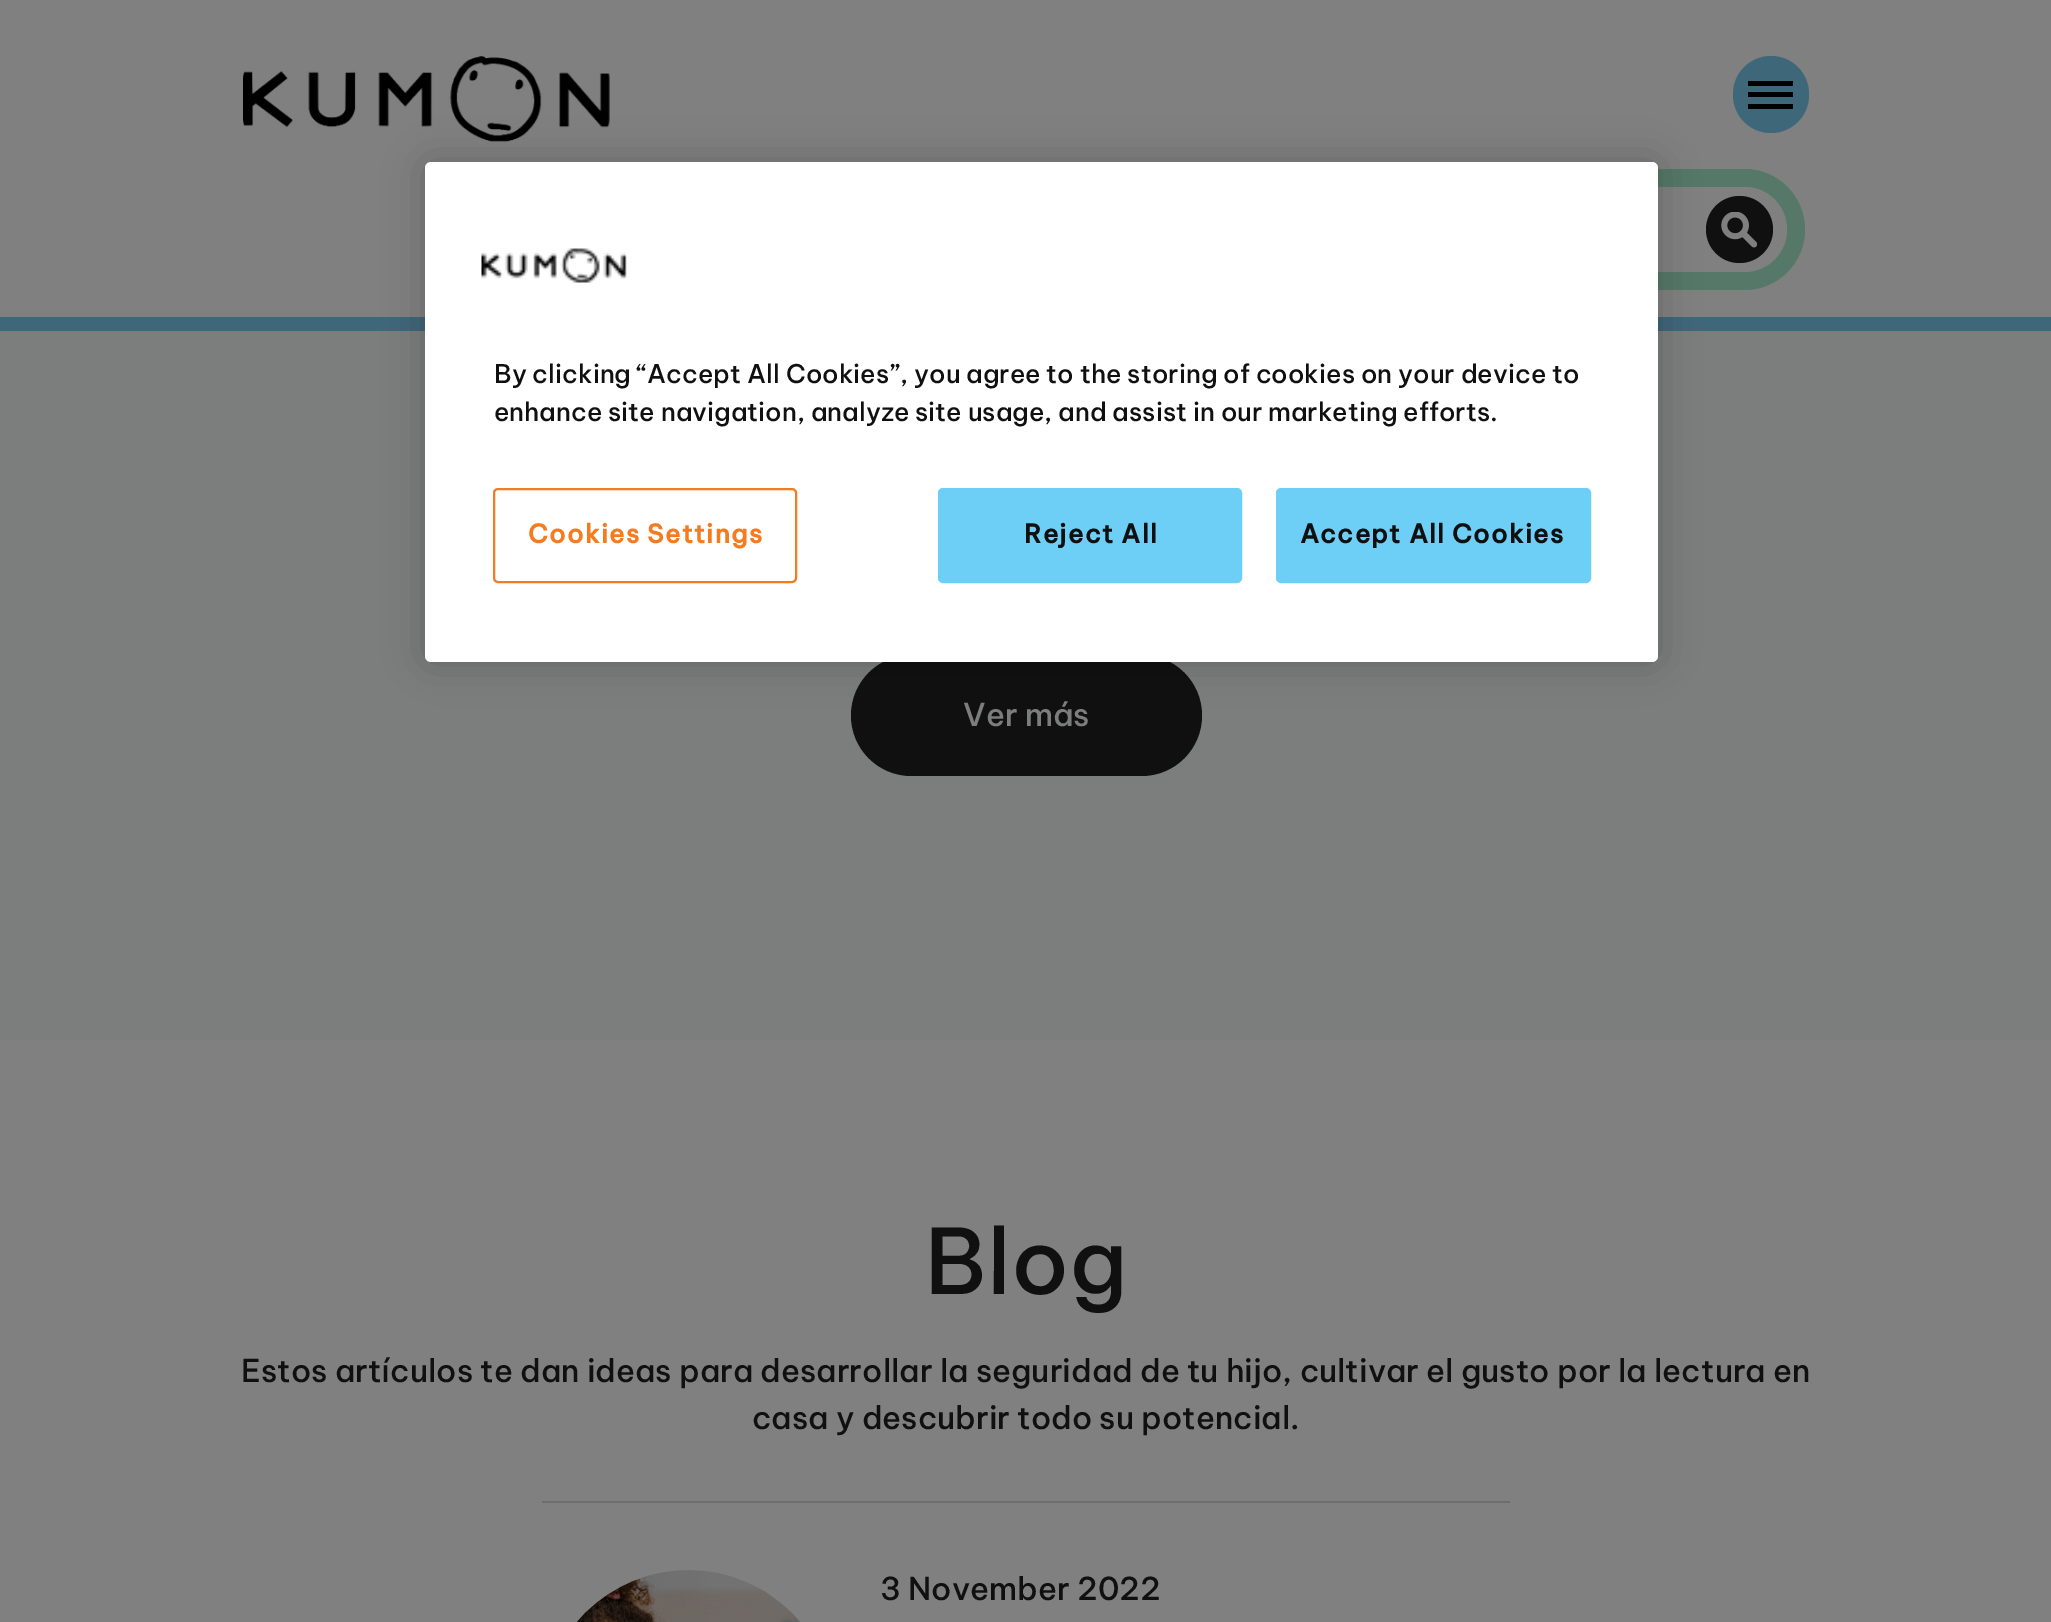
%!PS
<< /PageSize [2051 1622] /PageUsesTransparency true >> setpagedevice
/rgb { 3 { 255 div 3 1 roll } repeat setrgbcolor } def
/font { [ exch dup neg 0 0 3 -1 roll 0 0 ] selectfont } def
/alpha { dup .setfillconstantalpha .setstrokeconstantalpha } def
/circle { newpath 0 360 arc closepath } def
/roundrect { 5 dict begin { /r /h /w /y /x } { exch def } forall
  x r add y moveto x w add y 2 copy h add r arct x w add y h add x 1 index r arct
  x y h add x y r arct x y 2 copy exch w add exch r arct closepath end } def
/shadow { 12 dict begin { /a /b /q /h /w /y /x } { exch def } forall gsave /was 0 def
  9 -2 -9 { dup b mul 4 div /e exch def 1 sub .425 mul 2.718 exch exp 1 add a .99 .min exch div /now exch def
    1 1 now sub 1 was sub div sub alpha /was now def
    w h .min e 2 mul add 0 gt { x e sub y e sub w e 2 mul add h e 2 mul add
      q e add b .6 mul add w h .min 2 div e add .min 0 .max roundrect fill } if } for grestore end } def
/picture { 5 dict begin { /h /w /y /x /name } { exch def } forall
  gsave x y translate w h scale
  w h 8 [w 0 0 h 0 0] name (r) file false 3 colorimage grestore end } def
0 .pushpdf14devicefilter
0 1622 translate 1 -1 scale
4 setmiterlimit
128 128 128 rgb
0 0 2051 1622 rectfill
63 103 122 rgb
0 317 2051 14 rectfill
(img/1.rgb) 243 56 367 86 picture
1733 56 76 77 38 roundrect fill
[
  [1748 81 45 5 0 0 0]
  [1748 92 45 5 0 0 0]
  [1748 104 45 5 0 0 0]
] { aload pop rgb rectfill } forall
86 120 105 rgb
657 169 1148 121 60.5 roundrect fill
128 128 128 rgb
1199 187 588 85 42.5 roundrect fill
16 16 16 rgb
1739.5 229.5 33.5 circle fill
(img/2.rgb) 1721 212 36 36 picture
124 125 125 rgb
0 331 2051 709 rectfill
16 16 16 rgb
851 655 351 121 60.5 roundrect fill
0 0 0 rgb
425 162 1233 500 6 20 0.2 shadow
255 255 255 rgb
425 162 1233 500 6 roundrect fill
(img/3.rgb) 481 248 146 35 picture
244 123 32 rgb
2 setlinewidth
494 489 302 93 4 roundrect stroke
109 207 246 rgb
939 489 302 93 4 roundrect gsave fill grestore
stroke
1277 489 313 93 4 roundrect gsave fill grestore
stroke
110 110 110 rgb
542 1501 968 2 rectfill
(img/4.rgb) 576 1570 224 52 picture
/BeVietnamPro-Medium 25.6 font
16 16 16 rgb
494 383 moveto (By clicking “Accept All Cookies”, you agree to the storing of cookies on your device to) show
494 421 moveto (enhance site navigation, analyze site usage, and assist in our marketing efforts.) show
/BeVietnamPro-Bold 25.6 font
244 123 32 rgb
528 543 moveto 1.25 0 (Cookies Settings) ashow
16 16 16 rgb
1024 543 moveto 1.25 0 (Reject All) ashow
1300 543 moveto 1.25 0 (Accept All Cookies) ashow
/BeVietnamPro-Medium 31.5 font
124 125 125 rgb
963 726 moveto (Ver más) show
/BeVietnamPro-Medium 90 font
16 16 16 rgb
925 1294 moveto (Blog) show
/BeVietnamPro-Medium 31.5 font
[
  [(Estos artículos te dan ideas para desarrollar la seguridad de tu hijo, cultivar el gusto por la lectura en) 241 1382]
  [(casa y descubrir todo su potencial.) 752 1429]
  [(3 November 2022) 880 1600]
] { aload pop moveto show } forall
.poppdf14devicefilter showpage
